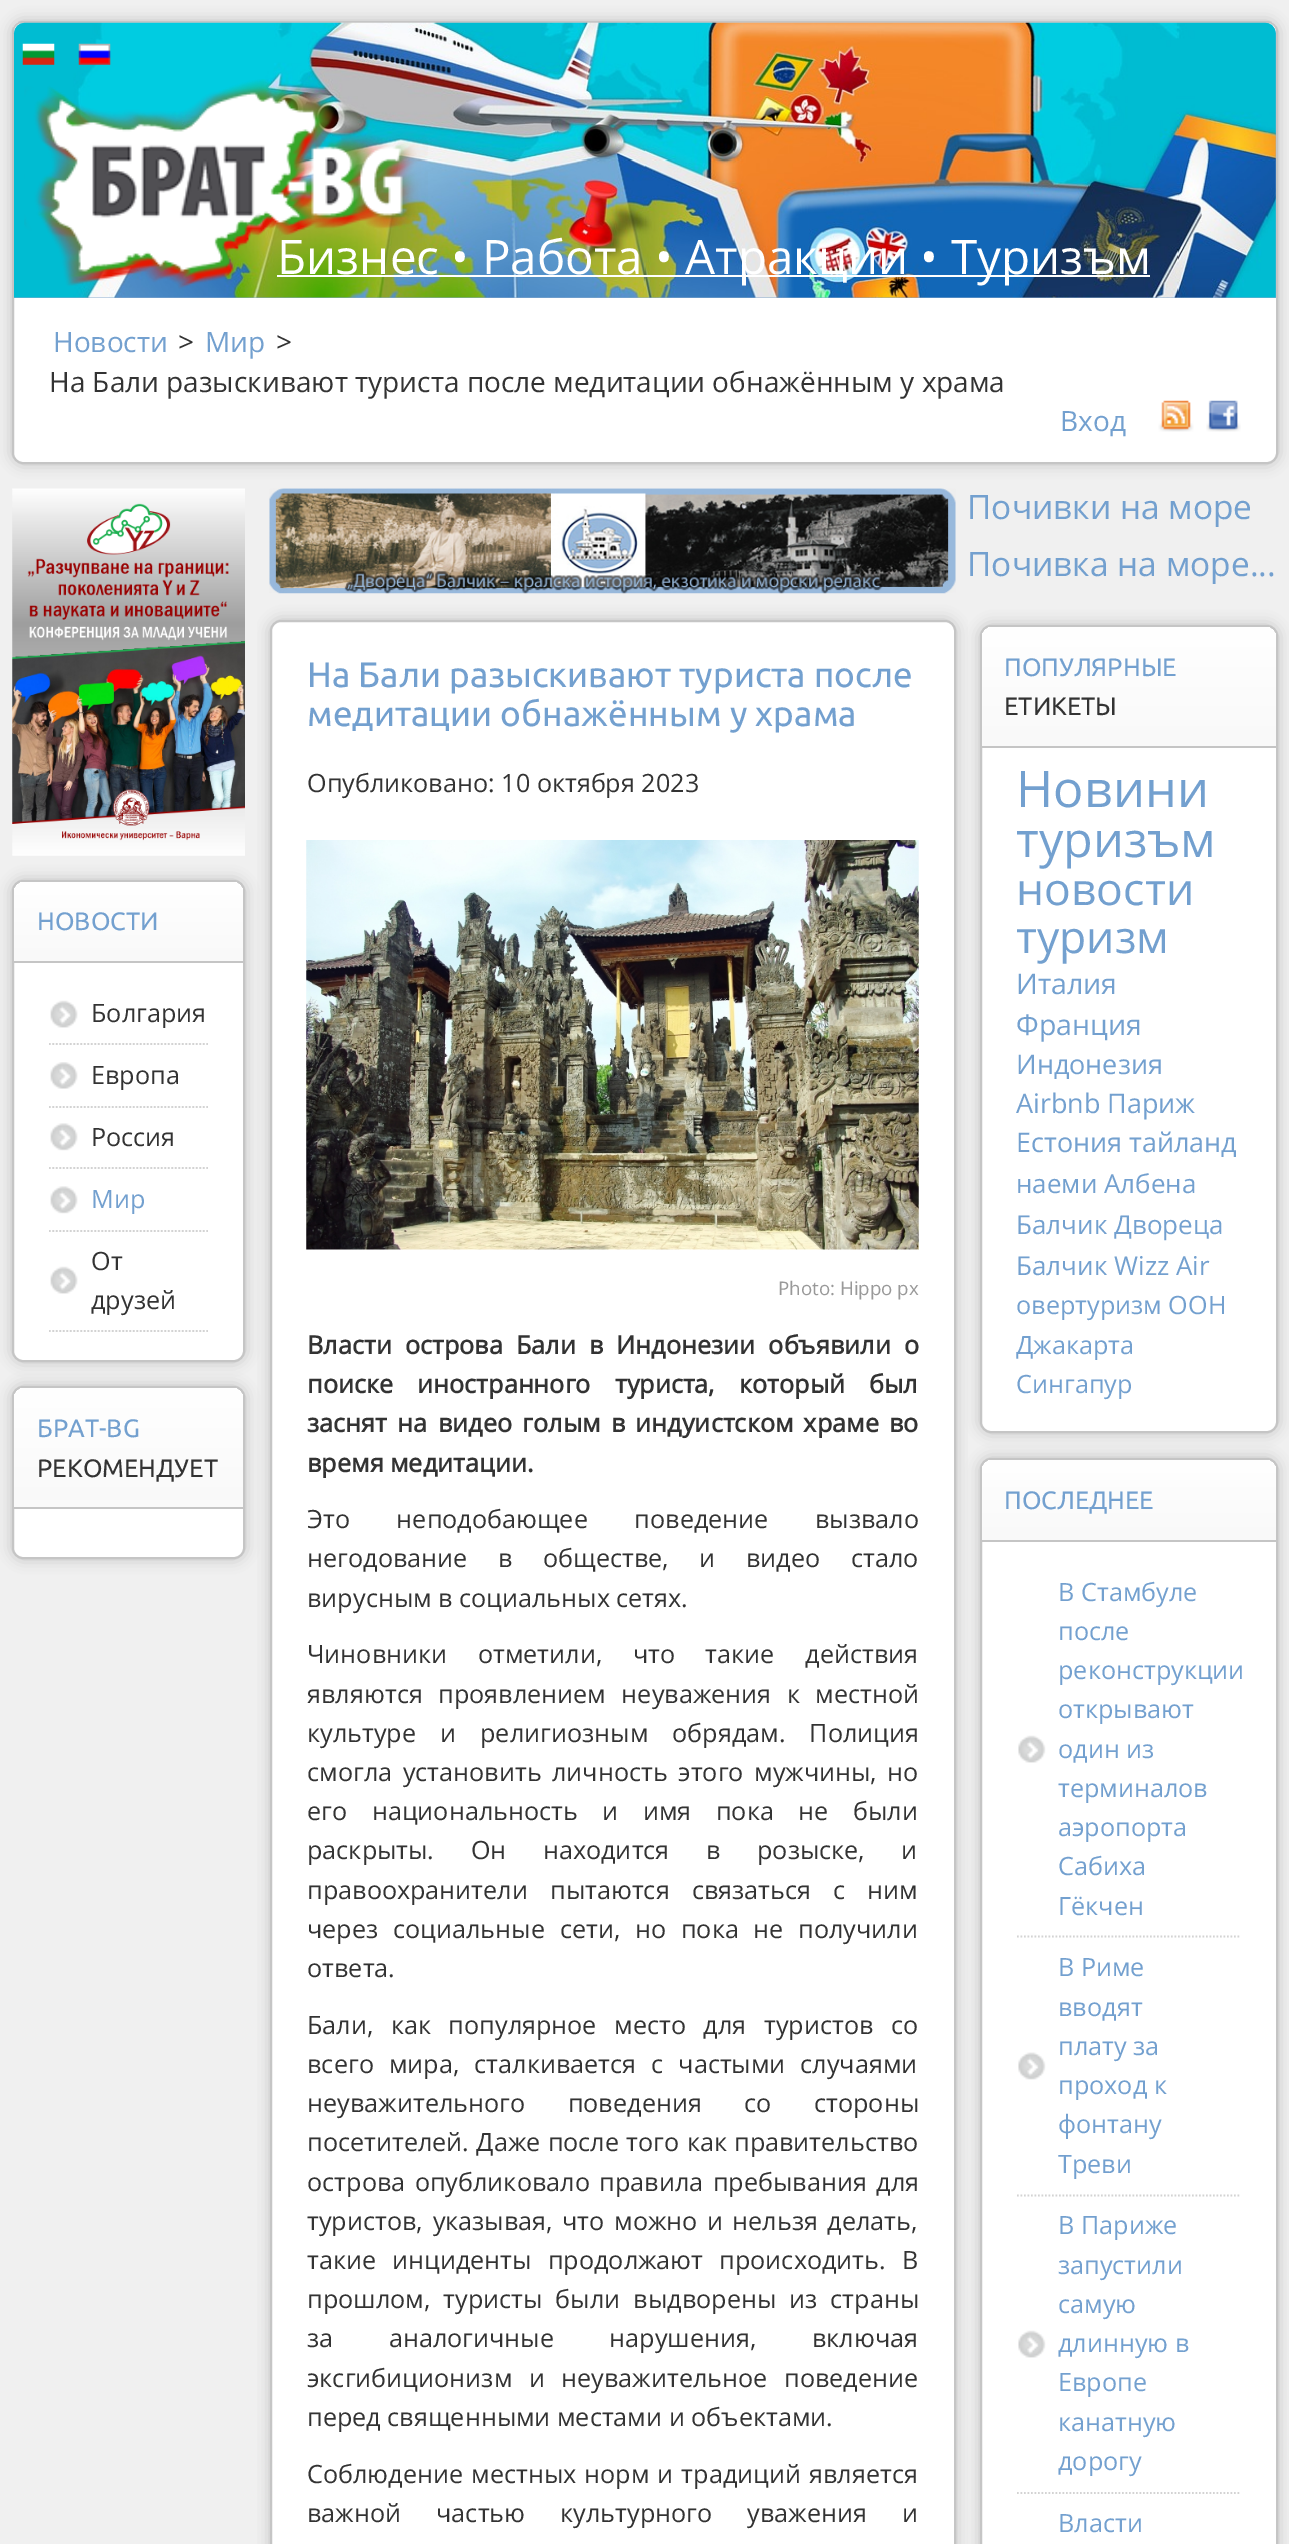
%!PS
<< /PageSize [1289 2544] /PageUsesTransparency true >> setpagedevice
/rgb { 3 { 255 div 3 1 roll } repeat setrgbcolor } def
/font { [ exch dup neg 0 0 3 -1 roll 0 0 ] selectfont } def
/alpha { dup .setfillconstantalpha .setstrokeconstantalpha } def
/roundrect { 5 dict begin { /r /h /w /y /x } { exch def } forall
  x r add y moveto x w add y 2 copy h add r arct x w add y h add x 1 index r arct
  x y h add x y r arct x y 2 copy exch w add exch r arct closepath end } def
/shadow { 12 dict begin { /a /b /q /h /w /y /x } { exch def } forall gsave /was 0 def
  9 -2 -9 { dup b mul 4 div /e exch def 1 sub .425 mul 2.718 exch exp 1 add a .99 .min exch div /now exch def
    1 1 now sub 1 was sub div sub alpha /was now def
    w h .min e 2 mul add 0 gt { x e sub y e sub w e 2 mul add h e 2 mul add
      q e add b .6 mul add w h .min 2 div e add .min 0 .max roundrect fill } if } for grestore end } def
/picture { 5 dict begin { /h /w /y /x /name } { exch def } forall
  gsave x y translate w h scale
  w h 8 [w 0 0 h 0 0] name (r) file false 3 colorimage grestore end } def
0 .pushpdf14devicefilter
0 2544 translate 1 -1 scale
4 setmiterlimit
240 240 240 rgb
0 0 1289 2544 rectfill
189 189 189 rgb
12 21 1266 443 11 7 1 shadow
255 255 255 rgb
13 22 1264 441 10 roundrect gsave fill grestore
197 197 197 rgb
2 setlinewidth
stroke
139 172 207 rgb
25 23 moveto 1265 23 lineto 1271 23 1276 28 1276 34 curveto 1276 298 lineto 14 298 lineto 14 34 lineto 14 28 19 23 25 23 curveto closepath fill
(img/1.rgb) 13 22 1263 276 picture
(img/2.rgb) 22 43 33 22 picture
(img/3.rgb) 78 43 33 22 picture
(img/4.rgb) 24 79 404 210 picture
255 255 255 rgb
277 275 873 2 rectfill
(img/5.rgb) 1158 400 36 32 picture
(img/6.rgb) 1206 400 35 32 picture
(img/7.rgb) 12 488 233 368 picture
189 189 189 rgb
12 880 233 482 11 7 1 shadow
255 255 255 rgb
13 881 231 480 10 roundrect gsave fill grestore
197 197 197 rgb
stroke
gsave 25 882 moveto 232 882 lineto 238 882 243 887 243 893 curveto 243 961 lineto 14 961 lineto 14 893 lineto 14 887 19 882 25 882 curveto closepath clip newpath
<< /ShadingType 2 /ColorSpace /DeviceRGB /Coords [129 882 129 961] /Extend [true true] /Function << /FunctionType 2 /Domain [0 1] /C0 [1 1 1] /C1 [0.976 0.976 0.976] /N 1 >> >> shfill grestore
14 961 229 2 rectfill
(img/8.rgb) 50 1000 28 28 picture
211 211 211 rgb
1.8 setlinewidth
[1.75 1.75] 0 setdash
49 1044 moveto 208 1044 lineto stroke
(img/9.rgb) 50 1062 28 27 picture
49 1107 moveto 208 1107 lineto stroke
(img/10.rgb) 50 1123 28 28 picture
49 1168 moveto 208 1168 lineto stroke
(img/10.rgb) 50 1186 28 28 picture
49 1231 moveto 208 1231 lineto stroke
(img/8.rgb) 50 1266 28 28 picture
49 1331 moveto 208 1331 lineto stroke
189 189 189 rgb
12 1386 233 173 11 7 1 shadow
255 255 255 rgb
13 1387 231 171 10 roundrect gsave fill grestore
197 197 197 rgb
2 setlinewidth
[] 0 setdash
stroke
gsave 25 1388 moveto 232 1388 lineto 238 1388 243 1393 243 1399 curveto 243 1507 lineto 14 1507 lineto 14 1399 lineto 14 1393 19 1388 25 1388 curveto closepath clip newpath
<< /ShadingType 2 /ColorSpace /DeviceRGB /Coords [129 1388 129 1507] /Extend [true true] /Function << /FunctionType 2 /Domain [0 1] /C0 [1 1 1] /C1 [0.976 0.976 0.976] /N 1 >> >> shfill grestore
14 1507 229 2 rectfill
(img/11.rgb) 269 488 687 106 picture
gsave
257 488 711 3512 rectclip
189 189 189 rgb
270 620 686 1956 11 7 1 shadow
grestore
255 255 255 rgb
271 621 684 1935 10 roundrect gsave fill grestore
197 197 197 rgb
stroke
(img/12.rgb) 306 840 613 410 picture
189 189 189 rgb
980 625 298 808 11 7 1 shadow
255 255 255 rgb
981 626 296 806 10 roundrect gsave fill grestore
197 197 197 rgb
stroke
gsave 993 627 moveto 1265 627 lineto 1271 627 1276 632 1276 638 curveto 1276 746 lineto 982 746 lineto 982 638 lineto 982 632 987 627 993 627 curveto closepath clip newpath
<< /ShadingType 2 /ColorSpace /DeviceRGB /Coords [1129 627 1129 746] /Extend [true true] /Function << /FunctionType 2 /Domain [0 1] /C0 [1 1 1] /C1 [0.976 0.976 0.976] /N 1 >> >> shfill grestore
982 746 294 2 rectfill
189 189 189 rgb
980 1458 298 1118 11 7 1 shadow
255 255 255 rgb
981 1459 296 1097 10 roundrect gsave fill grestore
197 197 197 rgb
stroke
gsave 993 1460 moveto 1265 1460 lineto 1271 1460 1276 1465 1276 1471 curveto 1276 1540 lineto 982 1540 lineto 982 1471 lineto 982 1465 987 1460 993 1460 curveto closepath clip newpath
<< /ShadingType 2 /ColorSpace /DeviceRGB /Coords [1129 1460 1129 1540] /Extend [true true] /Function << /FunctionType 2 /Domain [0 1] /C0 [1 1 1] /C1 [0.976 0.976 0.976] /N 1 >> >> shfill grestore
982 1540 294 2 rectfill
(img/13.rgb) 1018 1735 28 28 picture
211 211 211 rgb
1.8 setlinewidth
[1.75 1.75] 0 setdash
1017 1936.5 moveto 1241 1936.5 lineto stroke
(img/14.rgb) 1018 2052 28 28 picture
1017 2195.5 moveto 1241 2195.5 lineto stroke
(img/13.rgb) 1018 2330 28 28 picture
1017 2493 moveto 1241 2493 lineto stroke
/OpenSans-Regular 47.6 font
255 255 255 rgb
277 274 moveto (Бизнес • Работа • Атракции • Туризъм) show
/OpenSans-Regular 28 font
115 160 207 rgb
53 352 moveto (Новости) show
51 51 51 rgb
178 352 moveto (>) show
115 160 207 rgb
205 352 moveto (Мир) show
51 51 51 rgb
276 352 moveto (>) show
49 392 moveto (На Бали разыскивают туриста после медитации обнажённым у храма) show
115 160 207 rgb
1060 431 moveto (Вход) show
/Ubuntu-Regular 25.2 font
37 930 moveto (НОВОСТИ) show
/OpenSans-Regular 25.2 font
51 51 51 rgb
[
  [(Болгария) 91 1022]
  [(Европа) 91 1084]
  [(Россия) 91 1146]
] { aload pop moveto show } forall
115 160 207 rgb
91 1208 moveto (Мир) show
51 51 51 rgb
91 1270 moveto (От) show
91 1309 moveto (друзей) show
/Ubuntu-Regular 25.2 font
115 160 207 rgb
37 1437 moveto (БРАТ-BG) show
51 51 51 rgb
37 1477 moveto (РЕКОМЕНДУЕТ) show
/Ubuntu-Regular 35.25 font
115 160 207 rgb
307 687 moveto (На Бали разыскивают туриста после) show
307 726 moveto (медитации обнажённым у храма) show
/OpenSans-Regular 25.2 font
51 51 51 rgb
307 792 moveto (Опубликовано: 10 октября 2023) show
/OpenSans-Regular 18.75 font
153 153 153 rgb
778 1295 moveto (Photo: Hippo px) show
/OpenSans-Bold 25.2 font
51 51 51 rgb
307 1354 moveto 6.5 0 32 (Власти острова Бали в Индонезии объявили о) widthshow
307 1393 moveto 17.5 0 32 (поиске иностранного туриста, который был) widthshow
307 1432 moveto 3.75 0 32 (заснят на видео голым в индуистском храме во) widthshow
307 1472 moveto (время медитации.) show
/OpenSans-Regular 25.2 font
307 1528 moveto 40 0 32 (Это неподобающее поведение вызвало) widthshow
307 1567 moveto 24 0 32 (негодование в обществе, и видео стало) widthshow
307 1607 moveto (вирусным в социальных сетях.) show
307 1663 moveto 24 0 32 (Чиновники отметили, что такие действия) widthshow
307 1703 moveto 9 0 32 (являются проявлением неуважения к местной) widthshow
307 1742 moveto 17.5 0 32 (культуре и религиозным обрядам. Полиция) widthshow
307 1781 moveto 4 0 32 (смогла установить личность этого мужчины, но) widthshow
307 1820 moveto 18 0 32 (его национальность и имя пока не были) widthshow
307 1859 moveto 30 0 32 (раскрыты. Он находится в розыске, и) widthshow
307 1899 moveto 15.5 0 32 (правоохранители пытаются связаться с ним) widthshow
307 1938 moveto 8.25 0 32 (через социальные сети, но пока не получили) widthshow
307 1977 moveto (ответа.) show
307 2034 moveto 11 0 32 (Бали, как популярное место для туристов со) widthshow
307 2073 moveto 8.5 0 32 (всего мира, сталкивается с частыми случаями) widthshow
307 2112 moveto 36 0 32 (неуважительного поведения со стороны) widthshow
307 2151 moveto 0.75 0 32 (посетителей. Даже после того как правительство) widthshow
307 2191 moveto 3 0 32 (острова опубликовало правила пребывания для) widthshow
307 2230 moveto 3 0 32 (туристов, указывая, что можно и нельзя делать,) widthshow
307 2269 moveto 9.5 0 32 (такие инциденты продолжают происходить. В) widthshow
307 2308 moveto 6.5 0 32 (прошлом, туристы были выдворены из страны) widthshow
307 2347 moveto 49 0 32 (за аналогичные нарушения, включая) widthshow
307 2387 moveto 10 0 32 (эксгибиционизм и неуважительное поведение) widthshow
307 2426 moveto (перед священными местами и объектами.) show
307 2483 moveto 1.5 0 32 (Соблюдение местных норм и традиций является) widthshow
307 2522 moveto 28.5 0 32 (важной частью культурного уважения и) widthshow
/OpenSans-Regular 33.5 font
115 160 207 rgb
967 519 moveto (Почивки на море) show
967 576 moveto (Почивка на море...) show
/Ubuntu-Regular 25.2 font
1004 676 moveto (ПОПУЛЯРНЫЕ) show
51 51 51 rgb
1004 715 moveto (ЕТИКЕТЫ) show
/OpenSans-Regular 50.5 font
115 160 207 rgb
1016 807 moveto (Новини) show
/OpenSans-Regular 48.5 font
1016 857 moveto (туризъм) show
/OpenSans-Regular 44.5 font
1016 905 moveto (новости) show
1016 953 moveto (туризм) show
/OpenSans-Regular 28.5 font
1016 994 moveto (Италия) show
1016 1035 moveto (Франция) show
/OpenSans-Regular 27 font
[
  [(Индонезия) 1016 1074]
  [(Airbnb) 1016 1113]
  [(Париж) 1107 1113]
  [(Естония) 1016 1152]
  [(тайланд) 1129 1152]
] { aload pop moveto show } forall
/OpenSans-Regular 26 font
[
  [(наеми Албена) 1016 1193]
  [(Балчик) 1016 1234]
  [(Двореца) 1114 1234]
  [(Балчик) 1016 1275]
  [(Wizz Air) 1114 1275]
] { aload pop moveto show } forall
/OpenSans-Regular 25.2 font
[
  [(овертуризм ООН) 1016 1314]
  [(Джакарта) 1016 1354]
  [(Сингапур) 1016 1393]
] { aload pop moveto show } forall
/Ubuntu-Regular 25.2 font
1004 1509 moveto (ПОСЛЕДНЕЕ) show
/OpenSans-Regular 25.2 font
[
  [(В Стамбуле) 1058 1601]
  [(после) 1058 1640]
  [(реконструкции) 1058 1679]
  [(открывают) 1058 1718]
  [(один из) 1058 1758]
  [(терминалов) 1058 1797]
  [(аэропорта) 1058 1836]
  [(Сабиха) 1058 1875]
  [(Гёкчен) 1058 1915]
  [(В Риме) 1058 1976]
  [(вводят) 1058 2016]
  [(плату за) 1058 2055]
  [(проход к) 1058 2094]
  [(фонтану) 1058 2133]
  [(Треви) 1058 2173]
  [(В Париже) 1058 2234]
  [(запустили) 1058 2274]
  [(самую) 1058 2313]
  [(длинную в) 1058 2352]
  [(Европе) 1058 2391]
  [(канатную) 1058 2431]
  [(дорогу) 1058 2470]
  [(Власти) 1058 2532]
] { aload pop moveto show } forall
.poppdf14devicefilter showpage
